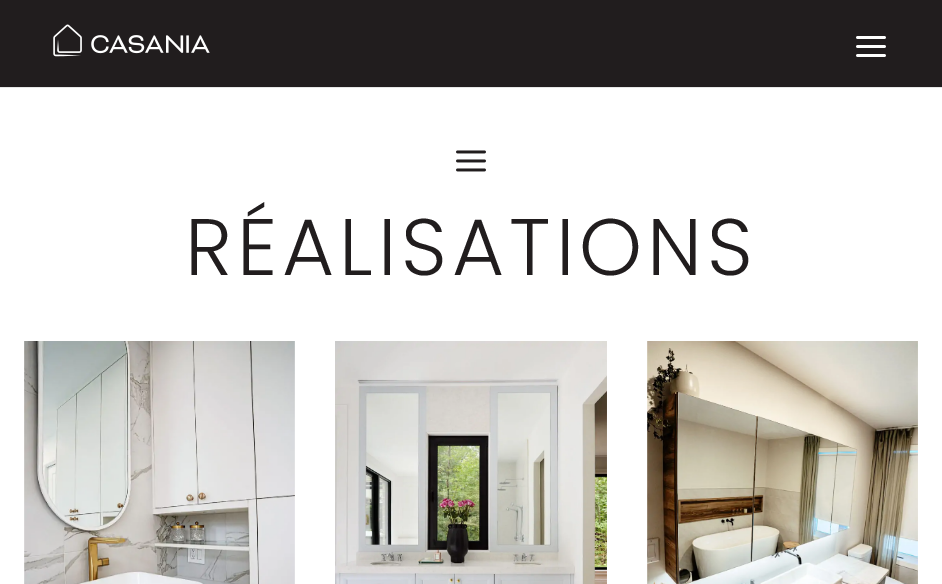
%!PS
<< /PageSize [942 584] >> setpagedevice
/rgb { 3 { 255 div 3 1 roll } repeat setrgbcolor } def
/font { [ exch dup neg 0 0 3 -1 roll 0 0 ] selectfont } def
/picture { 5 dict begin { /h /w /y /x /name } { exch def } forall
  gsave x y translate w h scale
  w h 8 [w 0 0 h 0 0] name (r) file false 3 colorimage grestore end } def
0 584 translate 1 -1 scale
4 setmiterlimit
255 255 255 rgb
0 0 942 584 rectfill
230 230 230 rgb
0 87 942 1 rectfill
33 29 30 rgb
0 0 942 87 rectfill
(img/1.rgb) 53 24 157 33 picture
(img/2.rgb) 856 36 30 21 picture
(img/3.rgb) 456 150 30 22 picture
(img/4.rgb) 24 341 271 243 picture
(img/5.rgb) 335 341 272 243 picture
(img/6.rgb) 647 341 271 243 picture
/Poppins-Light 80 font
185 275 moveto 5 0 (RÉALISATIONS) ashow
showpage
